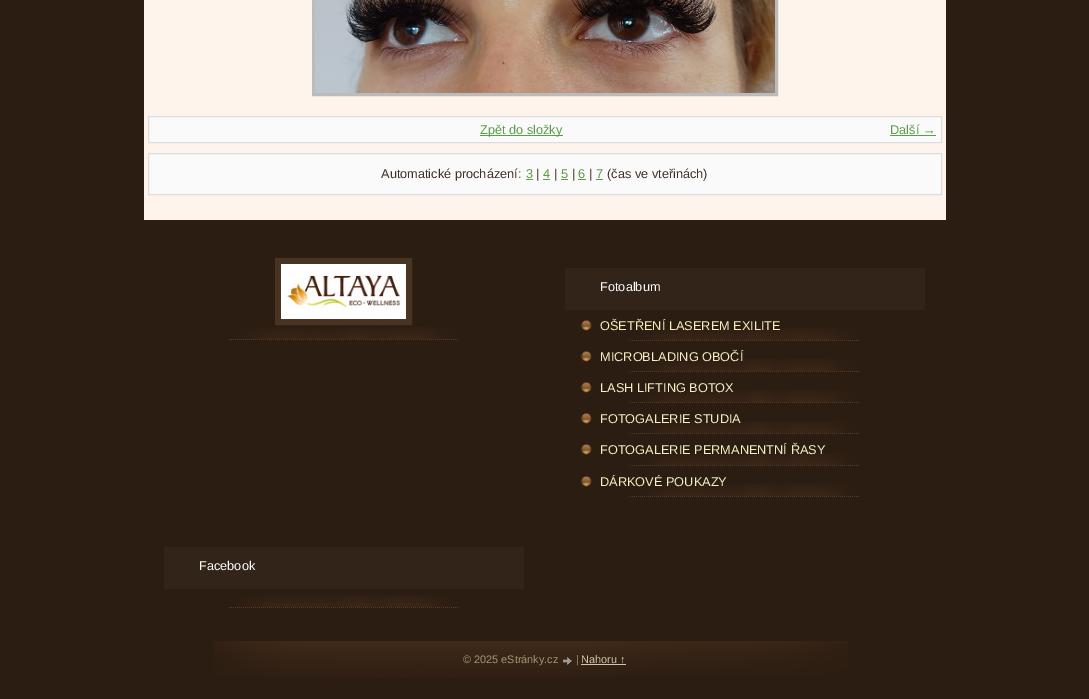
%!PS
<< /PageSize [1089 699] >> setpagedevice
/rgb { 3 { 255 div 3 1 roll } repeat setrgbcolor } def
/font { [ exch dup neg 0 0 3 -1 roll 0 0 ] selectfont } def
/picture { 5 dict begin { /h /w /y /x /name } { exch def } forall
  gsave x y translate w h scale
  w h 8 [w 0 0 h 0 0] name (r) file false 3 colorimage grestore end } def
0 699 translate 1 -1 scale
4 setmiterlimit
44 29 18 rgb
0 0 1089 699 rectfill
254 244 236 rgb
144 0 802 220 rectfill
187 187 187 rgb
3 setlinewidth
313.5 -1.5 463 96 rectstroke
(img/1.rgb) 315 0 460 93 picture
250 250 250 rgb
148.5 116.5 moveto 941.5 116.5 lineto 941.5 142.5 lineto 148.5 142.5 lineto closepath gsave fill grestore
221 221 221 rgb
1 setlinewidth
stroke
92 156 75 rgb
480 135 83 1 rectfill
890 135 46 1 rectfill
250 250 250 rgb
148.5 153.5 moveto 941.5 153.5 lineto 941.5 194.5 lineto 148.5 194.5 lineto closepath gsave fill grestore
221 221 221 rgb
stroke
[
  [526 179 7 1 92 156 75]
  [543 179 7 1 92 156 75]
  [561 179 7 1 92 156 75]
  [578 179 8 1 92 156 75]
  [596 179 7 1 92 156 75]
] { aload pop rgb rectfill } forall
(img/2.rgb) 229 327 229 13 picture
73 51 35 rgb
6 setlinewidth
278 261 131 61 rectstroke
(img/3.rgb) 281 264 125 55 picture
50 36 25 rgb
565 268 360 42 rectfill
(img/2.rgb) 630 484 229 13 picture
(img/2.rgb) 630 328 229 13 picture
(img/4.rgb) 581 320 11 11 picture
(img/2.rgb) 630 359 229 13 picture
(img/4.rgb) 581 351 11 11 picture
(img/2.rgb) 630 390 229 13 picture
(img/4.rgb) 581 382 11 11 picture
(img/2.rgb) 630 421 229 13 picture
(img/4.rgb) 581 413 11 11 picture
(img/2.rgb) 630 453 229 13 picture
(img/4.rgb) 581 444 11 11 picture
(img/4.rgb) 581 476 11 11 picture
164 547 360 42 rectfill
(img/2.rgb) 229 595 229 13 picture
(img/5.rgb) 213 641 635 36 picture
(img/6.rgb) 563 657 9 8 picture
208 200 170 rgb
581 664 45 1 rectfill
/LiberationSans-Regular 12.75 font
92 156 75 rgb
480 134 moveto (Zpět do složky) show
890 134 moveto (Další →) show
65 46 36 rgb
381 178 moveto (Automatické procházení:) show
92 156 75 rgb
526 178 moveto (3) show
65 46 36 rgb
536 178 moveto (|) show
92 156 75 rgb
543 178 moveto (4) show
65 46 36 rgb
554 178 moveto (|) show
92 156 75 rgb
561 178 moveto (5) show
65 46 36 rgb
572 178 moveto (|) show
92 156 75 rgb
578 178 moveto (6) show
65 46 36 rgb
589 178 moveto (|) show
92 156 75 rgb
596 178 moveto (7) show
65 46 36 rgb
607 178 moveto (\(čas ve vteřinách\)) show
255 255 255 rgb
600 291 moveto (Fotoalbum) show
246 239 193 rgb
[
  [(OŠETŘENÍ LASEREM EXILITE) 600 330]
  [(MICROBLADING OBOČÍ) 600 361]
  [(LASH LIFTING BOTOX) 600 392]
  [(FOTOGALERIE STUDIA) 600 423]
  [(FOTOGALERIE PERMANENTNÍ ŘASY) 600 454]
  [(DÁRKOVÉ POUKAZY) 600 486]
] { aload pop moveto show } forall
255 255 255 rgb
199 570 moveto (Facebook) show
/LiberationSans-Regular 10.9 font
161 152 117 rgb
463 663 moveto (© 2025 eStránky.cz) show
576 663 moveto (|) show
208 200 170 rgb
581 663 moveto (Nahoru ↑) show
showpage
